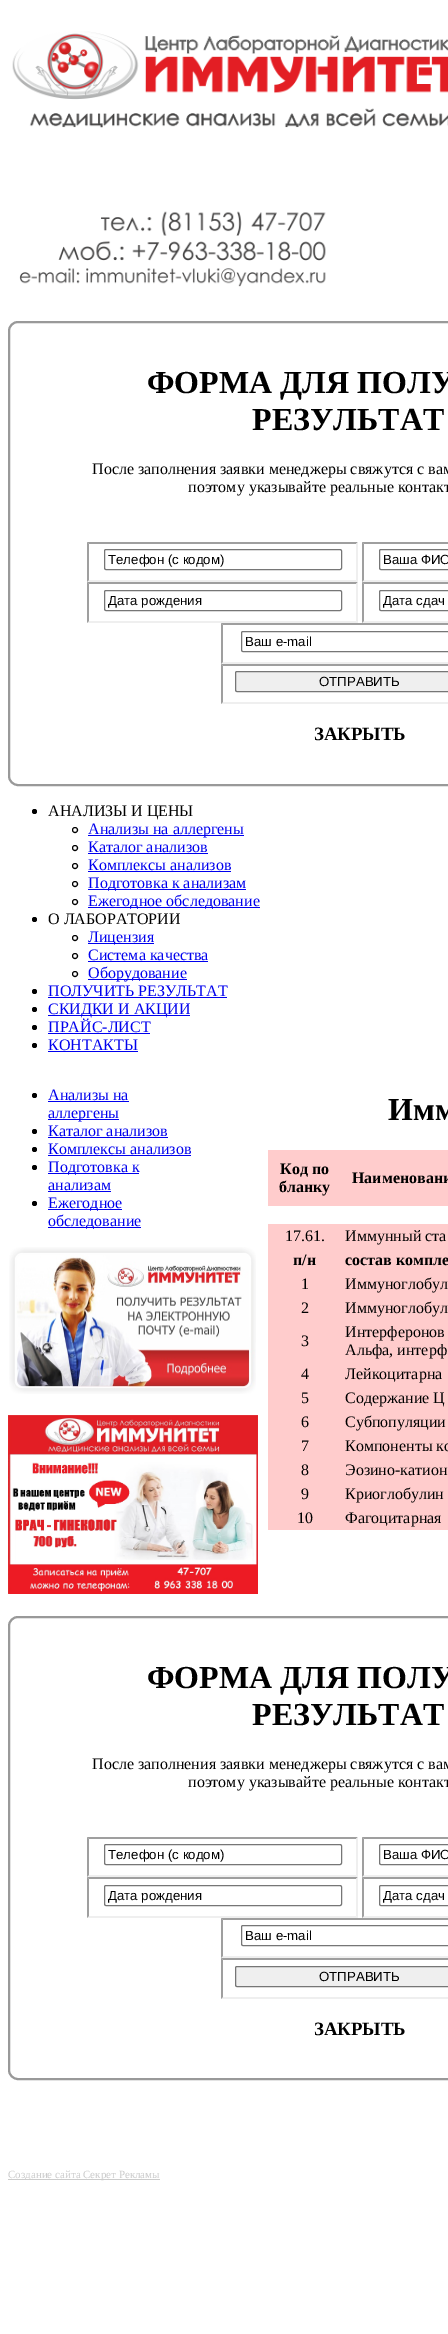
%!PS
<< /PageSize [448 2334] >> setpagedevice
/rgb { 3 { 255 div 3 1 roll } repeat setrgbcolor } def
/font { [ exch dup neg 0 0 3 -1 roll 0 0 ] selectfont } def
/circle { newpath 0 360 arc closepath } def
/roundrect { 5 dict begin { /r /h /w /y /x } { exch def } forall
  x r add y moveto x w add y 2 copy h add r arct x w add y h add x 1 index r arct
  x y h add x y r arct x y 2 copy exch w add exch r arct closepath end } def
/picture { 5 dict begin { /h /w /y /x /name } { exch def } forall
  gsave x y translate w h scale
  w h 8 [w 0 0 h 0 0] name (r) file false 3 colorimage grestore end } def
0 2334 translate 1 -1 scale
4 setmiterlimit
255 255 255 rgb
0 0 448 2334 rectfill
(img/1.rgb) 12 31 436 97 picture
(img/2.rgb) 19 211 307 76 picture
153 153 153 rgb
2 setlinewidth
9 322 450 463 9 roundrect stroke
159 159 159 rgb
87 542 moveto 358 542 lineto 356 544 lineto 89 544 lineto closepath fill
239 239 239 rgb
358 542 moveto 358 582 lineto 356 580 lineto 356 544 lineto closepath fill
358 582 moveto 87 582 lineto 89 580 lineto 356 580 lineto closepath fill
159 159 159 rgb
87 582 moveto 87 542 lineto 89 544 lineto 89 580 lineto closepath fill
118 118 118 rgb
1 setlinewidth
104.5 549.5 237 20 1.5 roundrect stroke
159 159 159 rgb
362 542 moveto 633 542 lineto 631 544 lineto 364 544 lineto closepath fill
239 239 239 rgb
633 582 moveto 362 582 lineto 364 580 lineto 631 580 lineto closepath fill
159 159 159 rgb
362 582 moveto 362 542 lineto 364 544 lineto 364 580 lineto closepath fill
118 118 118 rgb
379.5 549.5 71 20 1.5 roundrect stroke
159 159 159 rgb
87 582 moveto 358 582 lineto 356 584 lineto 89 584 lineto closepath fill
239 239 239 rgb
358 582 moveto 358 623 lineto 356 621 lineto 356 584 lineto closepath fill
358 623 moveto 87 623 lineto 89 621 lineto 356 621 lineto closepath fill
159 159 159 rgb
87 623 moveto 87 582 lineto 89 584 lineto 89 621 lineto closepath fill
118 118 118 rgb
104.5 590.5 237 20 1.5 roundrect stroke
159 159 159 rgb
362 582 moveto 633 582 lineto 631 584 lineto 364 584 lineto closepath fill
239 239 239 rgb
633 623 moveto 362 623 lineto 364 621 lineto 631 621 lineto closepath fill
159 159 159 rgb
362 623 moveto 362 582 lineto 364 584 lineto 364 621 lineto closepath fill
118 118 118 rgb
379.5 590.5 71 20 1.5 roundrect stroke
159 159 159 rgb
221 623 moveto 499 623 lineto 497 625 lineto 223 625 lineto closepath fill
239 239 239 rgb
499 664 moveto 221 664 lineto 223 662 lineto 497 662 lineto closepath fill
159 159 159 rgb
221 664 moveto 221 623 lineto 223 625 lineto 223 662 lineto closepath fill
118 118 118 rgb
241.5 631.5 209 20 1.5 roundrect stroke
159 159 159 rgb
221 664 moveto 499 664 lineto 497 666 lineto 223 666 lineto closepath fill
239 239 239 rgb
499 704 moveto 221 704 lineto 223 702 lineto 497 702 lineto closepath fill
159 159 159 rgb
221 704 moveto 221 664 lineto 223 666 lineto 223 702 lineto closepath fill
239 239 239 rgb
235.5 671.5 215 20 1.5 roundrect gsave fill grestore
118 118 118 rgb
stroke
0 0 0 rgb
34.5 811.5 2.5 circle fill
75 830 2.5 circle stroke
0 0 238 rgb
88 835 156 1 rectfill
0 0 0 rgb
75 848 2.5 circle stroke
0 0 238 rgb
88 853 120 1 rectfill
0 0 0 rgb
75 866 2.5 circle stroke
0 0 238 rgb
88 871 143 1 rectfill
0 0 0 rgb
75 884 2.5 circle stroke
0 0 238 rgb
88 889 158 1 rectfill
0 0 0 rgb
75 902 2.5 circle stroke
0 0 238 rgb
88 907 172 1 rectfill
0 0 0 rgb
34.5 919.5 2.5 circle fill
75 938 2.5 circle stroke
0 0 238 rgb
88 943 66 1 rectfill
0 0 0 rgb
75 956 2.5 circle stroke
0 0 238 rgb
88 961 120 1 rectfill
0 0 0 rgb
75 974 2.5 circle stroke
0 0 238 rgb
88 979 99 1 rectfill
0 0 0 rgb
34.5 991.5 2.5 circle fill
0 0 238 rgb
48 997 179 1 rectfill
0 0 0 rgb
34.5 1009.5 2.5 circle fill
0 0 238 rgb
48 1015 142 1 rectfill
0 0 0 rgb
34.5 1027.5 2.5 circle fill
0 0 238 rgb
48 1033 102 1 rectfill
0 0 0 rgb
34.5 1045.5 2.5 circle fill
0 0 238 rgb
48 1051 90 1 rectfill
0 0 0 rgb
34.5 1095.5 2.5 circle fill
0 0 238 rgb
48 1101 81 1 rectfill
48 1119 71 1 rectfill
0 0 0 rgb
34.5 1131.5 2.5 circle fill
0 0 238 rgb
48 1137 120 1 rectfill
0 0 0 rgb
34.5 1149.5 2.5 circle fill
0 0 238 rgb
48 1155 143 1 rectfill
0 0 0 rgb
34.5 1167.5 2.5 circle fill
0 0 238 rgb
48 1173 91 1 rectfill
48 1191 63 1 rectfill
0 0 0 rgb
34.5 1203.5 2.5 circle fill
0 0 238 rgb
48 1209 74 1 rectfill
48 1227 93 1 rectfill
(img/3.rgb) 9 1247 247 147 picture
(img/4.rgb) 8 1415 250 179 picture
[
  [268 1150 180 56 255 204 204]
  [268 1224 180 24 255 204 204]
  [268 1248 180 24 255 204 204]
  [268 1272 180 24 255 204 204]
  [268 1296 180 24 255 204 204]
  [268 1320 180 42 255 204 204]
  [268 1362 180 24 255 204 204]
  [268 1386 180 24 255 204 204]
  [268 1410 180 24 255 204 204]
  [268 1434 180 24 255 204 204]
  [268 1458 180 24 255 204 204]
  [268 1482 180 24 255 204 204]
  [268 1506 180 24 255 204 204]
] { aload pop rgb rectfill } forall
153 153 153 rgb
2 setlinewidth
9 1617 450 462 9 roundrect stroke
159 159 159 rgb
87 1837 moveto 358 1837 lineto 356 1839 lineto 89 1839 lineto closepath fill
239 239 239 rgb
358 1837 moveto 358 1877 lineto 356 1875 lineto 356 1839 lineto closepath fill
358 1877 moveto 87 1877 lineto 89 1875 lineto 356 1875 lineto closepath fill
159 159 159 rgb
87 1877 moveto 87 1837 lineto 89 1839 lineto 89 1875 lineto closepath fill
118 118 118 rgb
1 setlinewidth
104.5 1844.5 237 20 1.5 roundrect stroke
159 159 159 rgb
362 1837 moveto 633 1837 lineto 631 1839 lineto 364 1839 lineto closepath fill
239 239 239 rgb
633 1877 moveto 362 1877 lineto 364 1875 lineto 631 1875 lineto closepath fill
159 159 159 rgb
362 1877 moveto 362 1837 lineto 364 1839 lineto 364 1875 lineto closepath fill
118 118 118 rgb
379.5 1844.5 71 20 1.5 roundrect stroke
159 159 159 rgb
87 1877 moveto 358 1877 lineto 356 1879 lineto 89 1879 lineto closepath fill
239 239 239 rgb
358 1877 moveto 358 1918 lineto 356 1916 lineto 356 1879 lineto closepath fill
358 1918 moveto 87 1918 lineto 89 1916 lineto 356 1916 lineto closepath fill
159 159 159 rgb
87 1918 moveto 87 1877 lineto 89 1879 lineto 89 1916 lineto closepath fill
118 118 118 rgb
104.5 1885.5 237 20 1.5 roundrect stroke
159 159 159 rgb
362 1877 moveto 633 1877 lineto 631 1879 lineto 364 1879 lineto closepath fill
239 239 239 rgb
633 1918 moveto 362 1918 lineto 364 1916 lineto 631 1916 lineto closepath fill
159 159 159 rgb
362 1918 moveto 362 1877 lineto 364 1879 lineto 364 1916 lineto closepath fill
118 118 118 rgb
379.5 1885.5 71 20 1.5 roundrect stroke
159 159 159 rgb
221 1918 moveto 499 1918 lineto 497 1920 lineto 223 1920 lineto closepath fill
239 239 239 rgb
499 1958 moveto 221 1958 lineto 223 1956 lineto 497 1956 lineto closepath fill
159 159 159 rgb
221 1958 moveto 221 1918 lineto 223 1920 lineto 223 1956 lineto closepath fill
118 118 118 rgb
241.5 1925.5 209 20 1.5 roundrect stroke
159 159 159 rgb
221 1958 moveto 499 1958 lineto 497 1960 lineto 223 1960 lineto closepath fill
239 239 239 rgb
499 1999 moveto 221 1999 lineto 223 1997 lineto 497 1997 lineto closepath fill
159 159 159 rgb
221 1999 moveto 221 1958 lineto 223 1960 lineto 223 1997 lineto closepath fill
239 239 239 rgb
235.5 1966.5 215 20 1.5 roundrect gsave fill grestore
118 118 118 rgb
stroke
204 204 204 rgb
8 2179 152 1 rectfill
/LiberationSerif-Bold 32 font
0 0 0 rgb
147 393 moveto (ФОРМА ДЛЯ ПОЛУ) show
252 430 moveto (РЕЗУЛЬТАТ) show
/LiberationSerif-Regular 16 font
92 474 moveto (После заполнения заявки менеджеры свяжутся с вам) show
188 492 moveto (поэтому указывайте реальные контакт) show
/LiberationSans-Regular 13.25 font
108 564 moveto (Телефон \(с кодом\)) show
383 564 moveto (Ваша ФИО) show
gsave
108 593 230 15 rectclip
108 605 moveto (Дата рождения) show
grestore
gsave
383 593 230 15 rectclip
383 605 moveto (Дата сдач) show
grestore
245 646 moveto (Ваш e-mail) show
319 686 moveto (ОТПРАВИТЬ) show
/LiberationSerif-Bold 18.75 font
314 740 moveto (ЗАКРЫТЬ) show
/LiberationSerif-Regular 16 font
48 816 moveto (АНАЛИЗЫ И ЦЕНЫ) show
0 0 238 rgb
[
  [(Анализы на аллергены) 88 834]
  [(Каталог анализов) 88 852]
  [(Комплексы анализов) 88 870]
  [(Подготовка к анализам) 88 888]
  [(Ежегодное обследование) 88 906]
] { aload pop moveto show } forall
0 0 0 rgb
48 924 moveto (О ЛАБОРАТОРИИ) show
0 0 238 rgb
[
  [(Лицензия) 88 942]
  [(Система качества) 88 960]
  [(Оборудование) 88 978]
  [(ПОЛУЧИТЬ РЕЗУЛЬТАТ) 48 996]
  [(СКИДКИ И АКЦИИ) 48 1014]
  [(ПРАЙС-ЛИСТ) 48 1032]
  [(КОНТАКТЫ) 48 1050]
  [(Анализы на) 48 1100]
  [(аллергены) 48 1118]
  [(Каталог анализов) 48 1136]
  [(Комплексы анализов) 48 1154]
  [(Подготовка к) 48 1172]
  [(анализам) 48 1190]
  [(Ежегодное) 48 1208]
  [(обследование) 48 1226]
] { aload pop moveto show } forall
/LiberationSerif-Bold 32 font
0 0 0 rgb
388 1120 moveto (Имм) show
/LiberationSerif-Bold 16 font
[
  [(Код по) 280 1174]
  [(бланку) 279 1192]
  [(Наименовани) 352 1183]
] { aload pop moveto show } forall
/LiberationSerif-Regular 16 font
285 1241 moveto (17.61.) show
345 1241 moveto (Иммунный ста) show
/LiberationSerif-Bold 16 font
293 1265 moveto (п/н) show
345 1265 moveto (состав компле) show
/LiberationSerif-Regular 16 font
[
  [(1) 301 1289]
  [(Иммуноглобул) 345 1289]
  [(2) 301 1313]
  [(Иммуноглобул) 345 1313]
  [(3) 301 1346]
  [(Интерферонов) 345 1337]
  [(Альфа, интерф) 345 1355]
  [(4) 301 1379]
  [(Лейкоцитарна) 345 1379]
  [(5) 301 1403]
  [(Содержание Ц) 345 1403]
  [(6) 301 1427]
  [(Субпопуляции) 345 1427]
  [(7) 301 1451]
  [(Компоненты ко) 345 1451]
  [(8) 301 1475]
  [(Эозино-катион) 345 1475]
  [(9) 301 1499]
  [(Криоглобулин) 345 1499]
  [(10) 297 1523]
  [(Фагоцитарная) 345 1523]
] { aload pop moveto show } forall
/LiberationSerif-Bold 32 font
147 1688 moveto (ФОРМА ДЛЯ ПОЛУ) show
252 1725 moveto (РЕЗУЛЬТАТ) show
/LiberationSerif-Regular 16 font
92 1769 moveto (После заполнения заявки менеджеры свяжутся с вам) show
188 1787 moveto (поэтому указывайте реальные контакт) show
/LiberationSans-Regular 13.25 font
108 1859 moveto (Телефон \(с кодом\)) show
383 1859 moveto (Ваша ФИО) show
gsave
108 1888 230 15 rectclip
108 1900 moveto (Дата рождения) show
grestore
gsave
383 1888 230 15 rectclip
383 1900 moveto (Дата сдач) show
grestore
245 1940 moveto (Ваш e-mail) show
319 1981 moveto (ОТПРАВИТЬ) show
/LiberationSerif-Bold 18.75 font
314 2035 moveto (ЗАКРЫТЬ) show
/LiberationSerif-Regular 11 font
204 204 204 rgb
8 2178 moveto (Cоздание сайта Секрет Рекламы) show
showpage
